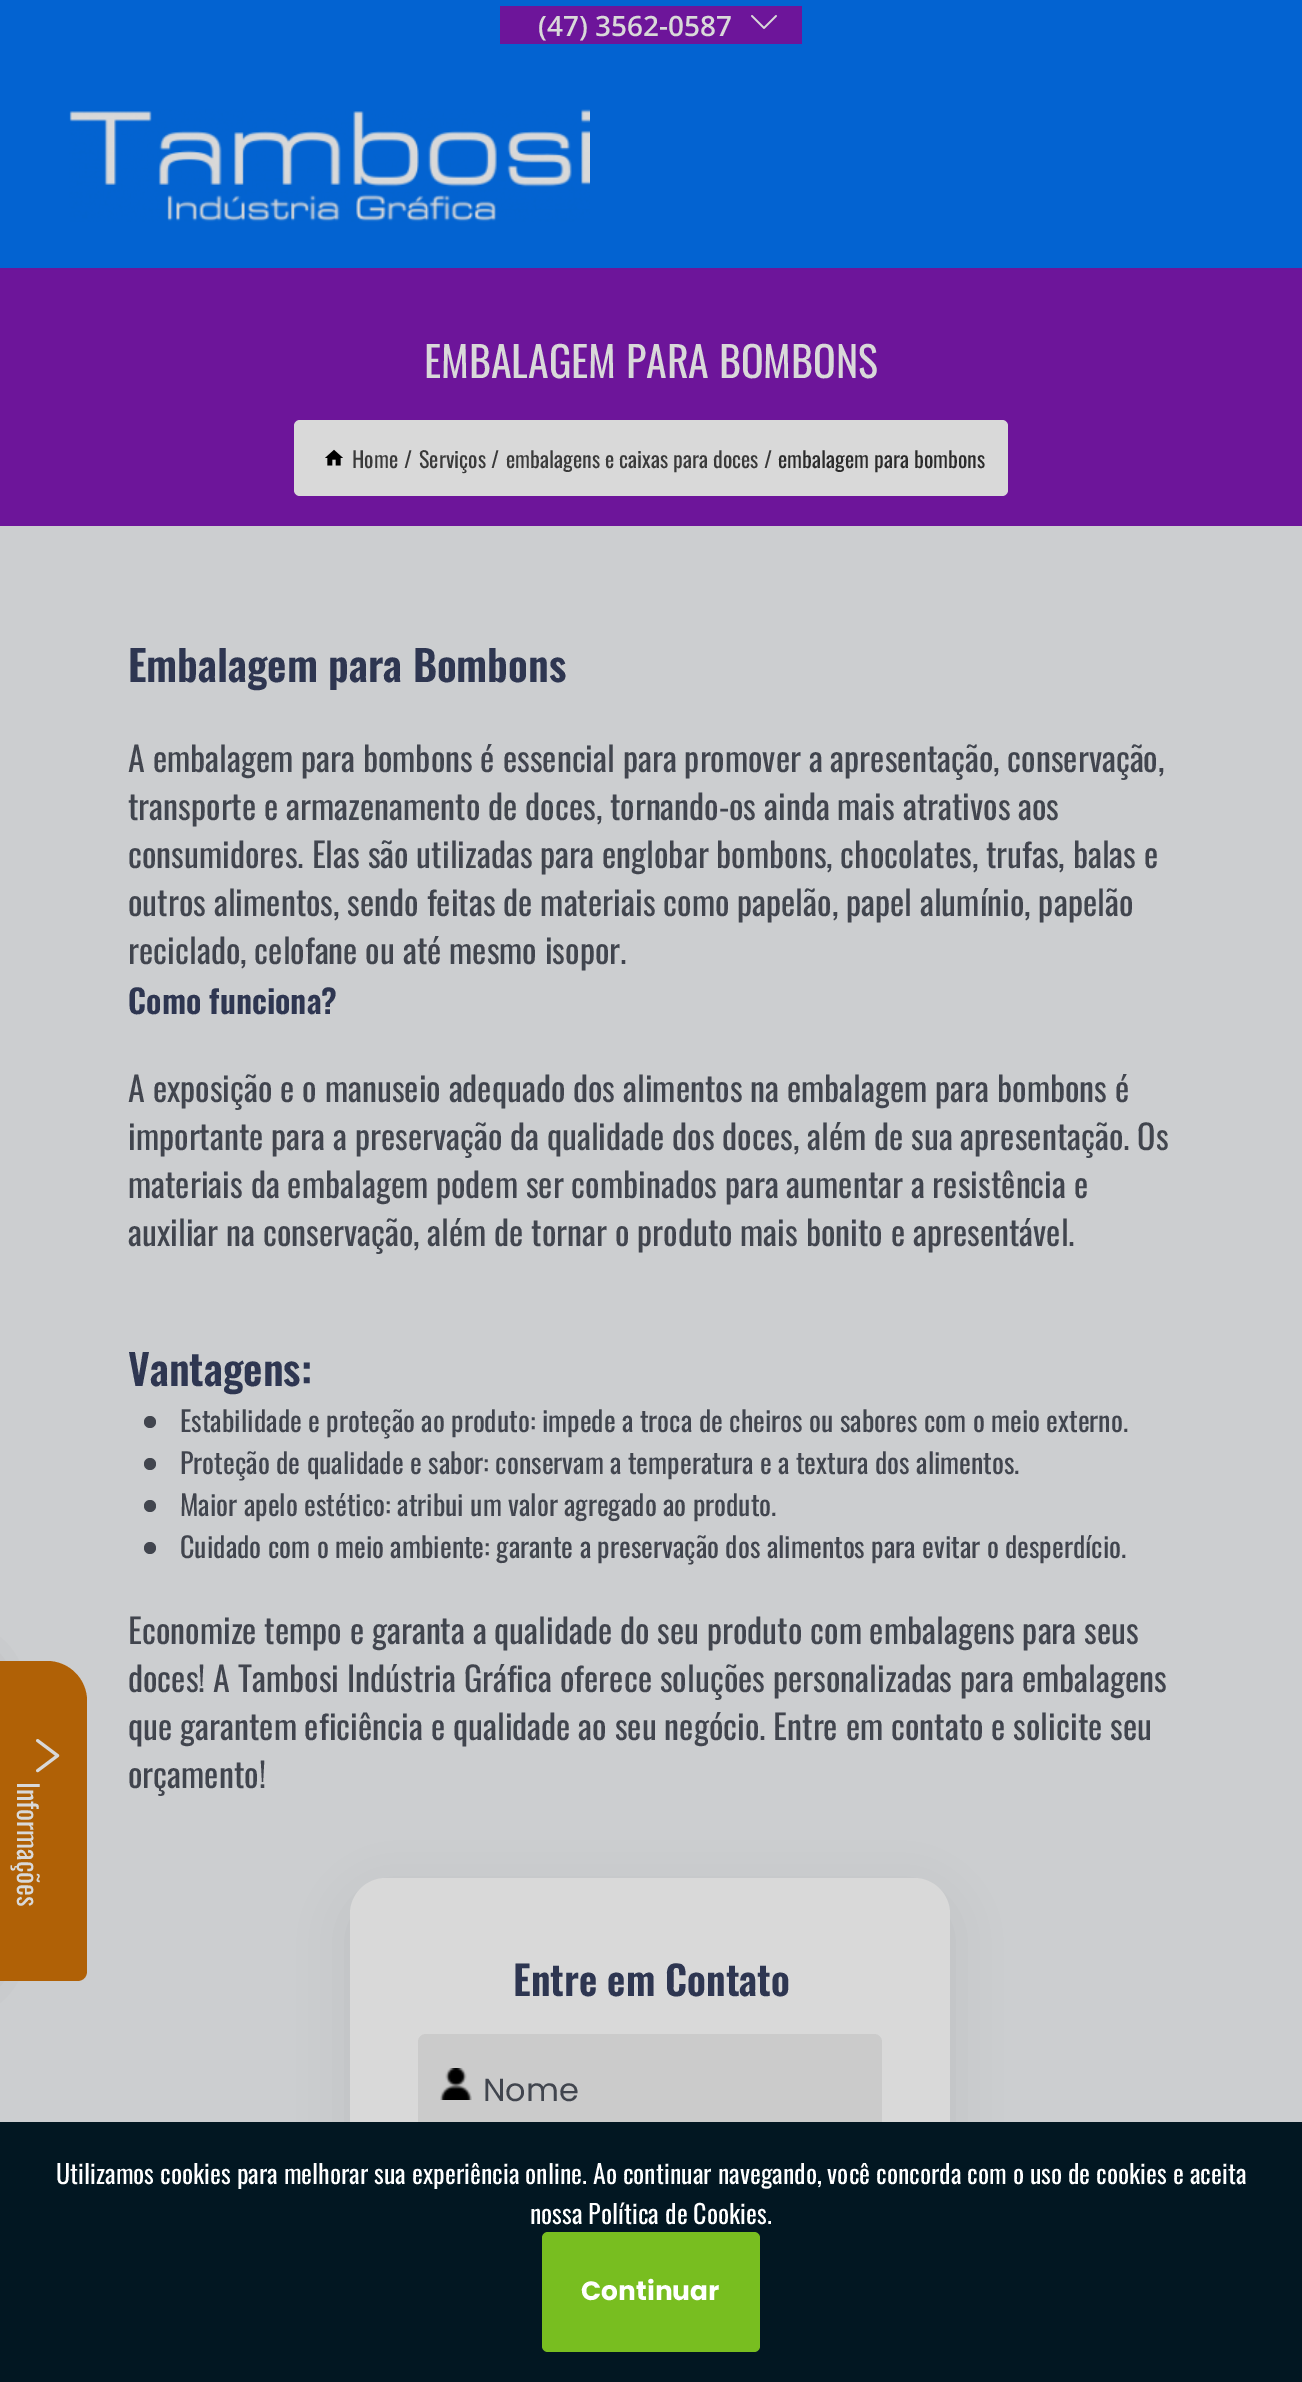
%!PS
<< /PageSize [1302 2382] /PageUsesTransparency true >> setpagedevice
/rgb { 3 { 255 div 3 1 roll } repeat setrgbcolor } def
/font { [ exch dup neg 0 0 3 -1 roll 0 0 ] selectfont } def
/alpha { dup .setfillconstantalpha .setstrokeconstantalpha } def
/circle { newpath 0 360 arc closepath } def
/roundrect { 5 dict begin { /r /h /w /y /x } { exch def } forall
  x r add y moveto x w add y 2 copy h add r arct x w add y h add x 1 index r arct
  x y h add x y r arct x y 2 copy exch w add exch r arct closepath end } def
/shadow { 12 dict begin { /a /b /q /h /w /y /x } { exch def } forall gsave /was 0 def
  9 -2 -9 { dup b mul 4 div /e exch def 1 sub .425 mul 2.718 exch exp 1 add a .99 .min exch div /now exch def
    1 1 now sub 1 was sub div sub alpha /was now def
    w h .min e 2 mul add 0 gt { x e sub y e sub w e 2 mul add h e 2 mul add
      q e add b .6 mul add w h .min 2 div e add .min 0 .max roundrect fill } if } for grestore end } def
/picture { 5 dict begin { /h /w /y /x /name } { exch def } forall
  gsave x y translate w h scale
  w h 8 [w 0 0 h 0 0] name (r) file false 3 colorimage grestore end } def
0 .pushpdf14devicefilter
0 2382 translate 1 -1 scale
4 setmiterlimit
204 206 208 rgb
0 0 1302 2382 rectfill
3 99 209 rgb
0 0 1302 268 rectfill
109 21 154 rgb
500 6 302 38 rectfill
(img/1.rgb) 751 15 26 14 picture
(img/2.rgb) 69 109 521 113 picture
113 113 113 rgb
-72 1676 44 288 0 24 1 shadow
176 97 6 rgb
87 1701 moveto 87 1971 lineto 87 1977 83 1981 77 1981 curveto -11 1981 lineto -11 1661 lineto 47 1661 lineto 69 1661 87 1679 87 1701 curveto closepath fill
(img/3.rgb) 36 1739 24 34 picture
109 21 154 rgb
0 268 1302 258 rectfill
217 217 217 rgb
294 420 714 76 6 roundrect fill
(img/4.rgb) 325 449 18 17 picture
65 69 78 rgb
150 1422 6 circle fill
150 1464 6 circle fill
150 1506 6 circle fill
150 1548 6 circle fill
127 133 140 rgb
350 1894 600 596 36 24 0.2 shadow
217 217 217 rgb
350 1878 600 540 36 roundrect fill
203 203 203 rgb
418 2034 464 102 8 roundrect fill
(img/5.rgb) 440 2068 32 32 picture
2 23 34 rgb
0 2122 1302 260 rectfill
120 190 32 rgb
542 2232 218 120 6 roundrect fill
/OpenSans-SemiBold 28 font
217 217 217 rgb
538 36 moveto (\(47\) 3562-0587) show
/Oswald-Regular 28 font
gsave 17 1782 translate 90 rotate 0 0 moveto (Informações) show grestore
/Oswald-Regular 42 font
424 378 moveto (EMBALAGEM PARA BOMBONS) show
/Oswald-Regular 22 font
58 58 58 rgb
[
  [(Home) 352 468]
  [(/) 404 468]
  [(Serviços) 419 468]
  [(/) 491 468]
  [(embalagens e caixas para doces) 506 468]
  [(/) 764 468]
] { aload pop moveto show } forall
43 43 43 rgb
778 468 moveto (embalagem para bombons) show
/Oswald-SemiBold 42 font
46 54 81 rgb
128 682 moveto (Embalagem para Bombons) show
/Oswald-Regular 34 font
65 69 78 rgb
[
  [(A embalagem para bombons é essencial para promover a apresentação, conservação,) 128 772]
  [(transporte e armazenamento de doces, tornando-os ainda mais atrativos aos) 128 820]
  [(consumidores. Elas são utilizadas para englobar bombons, chocolates, trufas, balas e) 128 868]
  [(outros alimentos, sendo feitas de materiais como papelão, papel alumínio, papelão) 128 916]
  [(reciclado, celofane ou até mesmo isopor.) 128 964]
] { aload pop moveto show } forall
/Oswald-SemiBold 32.75 font
46 54 81 rgb
128 1014 moveto (Como funciona?) show
/Oswald-Regular 34 font
65 69 78 rgb
[
  [(A exposição e o manuseio adequado dos alimentos na embalagem para bombons é) 128 1102]
  [(importante para a preservação da qualidade dos doces, além de sua apresentação. Os) 128 1150]
  [(materiais da embalagem podem ser combinados para aumentar a resistência e) 128 1198]
  [(auxiliar na conservação, além de tornar o produto mais bonito e apresentável.) 128 1246]
] { aload pop moveto show } forall
/Oswald-SemiBold 42 font
46 54 81 rgb
128 1386 moveto (Vantagens:) show
/Oswald-Regular 28 font
65 69 78 rgb
[
  [(Estabilidade e proteção ao produto: impede a troca de cheiros ou sabores com o meio externo.) 180 1432]
  [(Proteção de qualidade e sabor: conservam a temperatura e a textura dos alimentos.) 180 1474]
  [(Maior apelo estético: atribui um valor agregado ao produto.) 180 1516]
  [(Cuidado com o meio ambiente: garante a preservação dos alimentos para evitar o desperdício.) 180 1558]
] { aload pop moveto show } forall
/Oswald-Regular 34 font
[
  [(Economize tempo e garanta a qualidade do seu produto com embalagens para seus) 128 1644]
  [(doces! A Tambosi Indústria Gráfica oferece soluções personalizadas para embalagens) 128 1692]
  [(que garantem eficiência e qualidade ao seu negócio. Entre em contato e solicite seu) 128 1740]
  [(orçamento!) 128 1788]
] { aload pop moveto show } forall
/Oswald-SemiBold 40 font
46 54 81 rgb
513 1996 moveto (Entre em Contato) show
/Poppins-Regular 32 font
65 69 78 rgb
483 2101 moveto (Nome) show
/Oswald-Regular 26 font
255 255 255 rgb
56 2184 moveto (Utilizamos cookies para melhorar sua experiência online. Ao continuar navegando, você concorda com o uso de cookies e aceita) show
530 2224 moveto (nossa Política de Cookies.) show
/Poppins-Bold 26.5 font
581 2300 moveto (Continuar) show
.poppdf14devicefilter showpage
